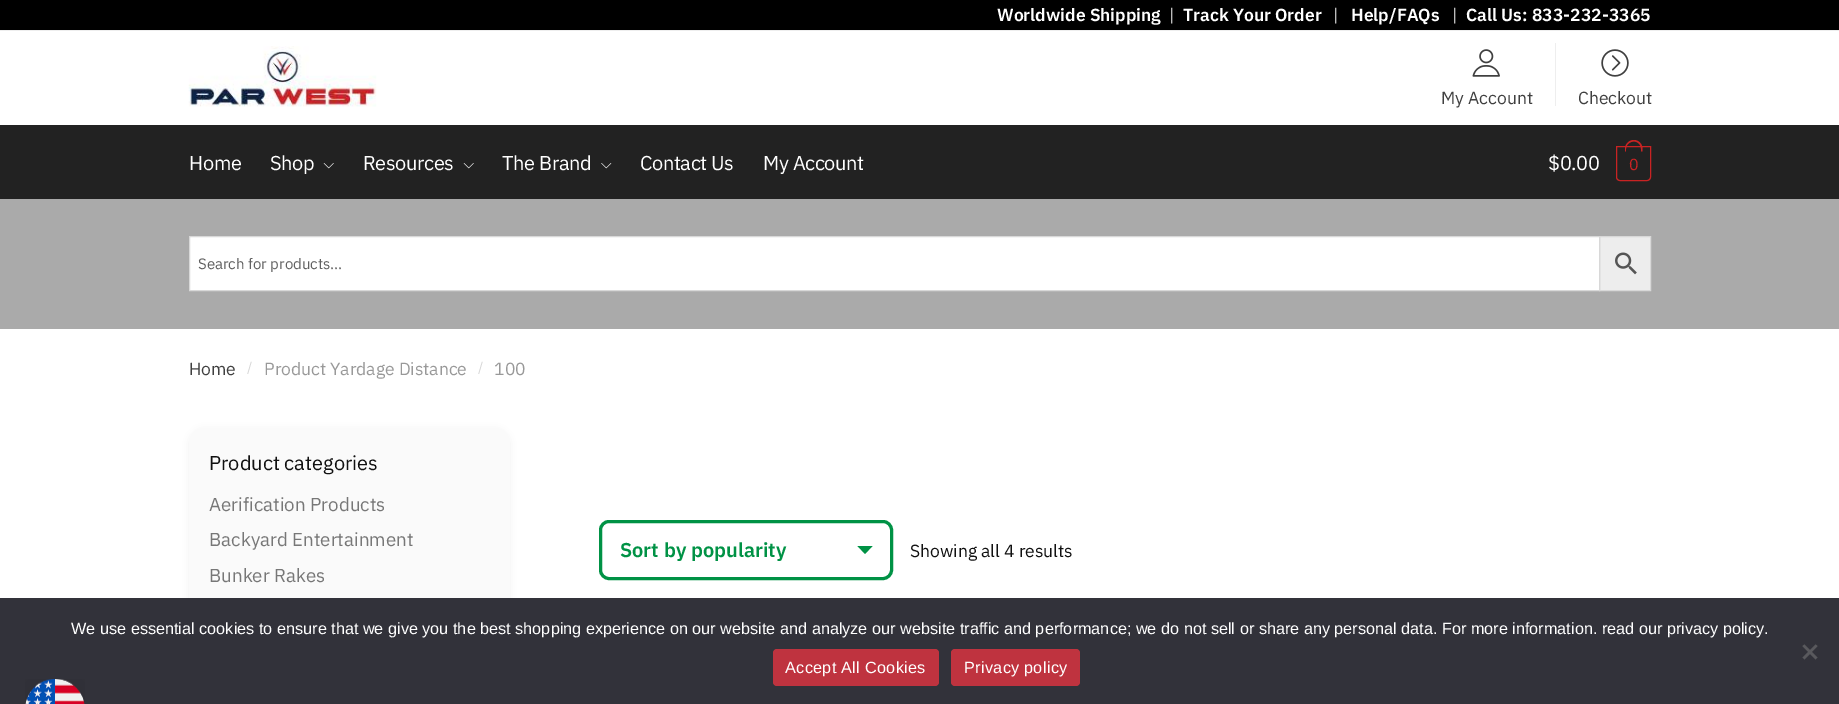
%!PS
<< /PageSize [1839 704] /PageUsesTransparency true >> setpagedevice
/rgb { 3 { 255 div 3 1 roll } repeat setrgbcolor } def
/font { [ exch dup neg 0 0 3 -1 roll 0 0 ] selectfont } def
/alpha { dup .setfillconstantalpha .setstrokeconstantalpha } def
/roundrect { 5 dict begin { /r /h /w /y /x } { exch def } forall
  x r add y moveto x w add y 2 copy h add r arct x w add y h add x 1 index r arct
  x y h add x y r arct x y 2 copy exch w add exch r arct closepath end } def
/shadow { 12 dict begin { /a /b /q /h /w /y /x } { exch def } forall gsave /was 0 def
  9 -2 -9 { dup b mul 4 div /e exch def 1 sub .425 mul 2.718 exch exp 1 add a .99 .min exch div /now exch def
    1 1 now sub 1 was sub div sub alpha /was now def
    w h .min e 2 mul add 0 gt { x e sub y e sub w e 2 mul add h e 2 mul add
      q e add b .6 mul add w h .min 2 div e add .min 0 .max roundrect fill } if } for grestore end } def
/picture { 5 dict begin { /h /w /y /x /name } { exch def } forall
  gsave x y translate w h scale
  w h 8 [w 0 0 h 0 0] name (r) file false 3 colorimage grestore end } def
0 .pushpdf14devicefilter
0 704 translate 1 -1 scale
4 setmiterlimit
255 255 255 rgb
0 0 1839 704 rectfill
0 0 0 rgb
0 0 1839 30 rectfill
238 238 238 rgb
0 30 1839 1 rectfill
(img/1.rgb) 188 46 189 61 picture
(img/2.rgb) 1472 49 28 28 picture
1555 43 1 63 rectfill
(img/3.rgb) 1601 49 28 28 picture
34 34 34 rgb
0 125 1839 74 rectfill
(img/4.rgb) 323 163 11 6 picture
(img/4.rgb) 463 163 11 6 picture
(img/5.rgb) 601 163 11 6 picture
201 35 35 rgb
1616.5 146.5 moveto 1650.5 146.5 lineto 1650.5 177 lineto 1650.5 179 1649 180.5 1647 180.5 curveto 1620 180.5 lineto 1618 180.5 1616.5 179 1616.5 177 curveto closepath stroke
1634 140 moveto 1638.5 140 1642.5 144 1642.5 149 curveto 1642.5 151.5 lineto 1625 151.5 lineto 1625 149 lineto 1625 144 1629 140 1634 140 curveto closepath 1634 141.5 moveto 1638 141.5 1641 145 1641 149 curveto 1641 151.5 lineto 1626 151.5 lineto 1626 149 lineto 1626 145 1629.5 141.5 1634 141.5 curveto closepath eofill
170 170 170 rgb
0 199 1839 130 rectfill
237 237 237 rgb
1599.5 236.5 moveto 1650.5 236.5 lineto 1650.5 290.5 lineto 1599.5 290.5 lineto closepath gsave fill grestore
216 216 216 rgb
stroke
255 255 255 rgb
189.5 236.5 moveto 1599.5 236.5 lineto 1599.5 290.5 lineto 189.5 290.5 lineto closepath gsave fill grestore
216 216 216 rgb
stroke
(img/6.rgb) 1615 252 22 23 picture
0 0 0 rgb
189 429 321 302 15 4 0.05 shadow
250 250 250 rgb
189 428 321 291 15 roundrect fill
0 146 69 rgb
3 setlinewidth
600.5 521.5 291 57 8.5 roundrect stroke
857.5 546 moveto 872.5 546 lineto 865 554 lineto closepath fill
50 50 58 rgb
0 598 1839 106 rectfill
89 89 93 rgb
1815.5 644.5 moveto 1817.5 646 lineto 1804.5 659.5 lineto 1802.5 657.5 lineto closepath fill
1802.5 646 moveto 1804.5 644.5 lineto 1817.5 657.5 lineto 1815.5 659.5 lineto closepath fill
191 51 63 rgb
773 649 166 37 4 roundrect fill
951 649 129 37 4 roundrect fill
(img/7.rgb) 25 679 60 25 picture
/IBMPlexSans-SemiBold 17.5 font
255 255 255 rgb
997 21 moveto (Worldwide Shipping) show
/IBMPlexSans-Regular 17.5 font
1169 21 moveto (|) show
/IBMPlexSans-SemiBold 17.5 font
1183 21 moveto (Track Your Order) show
/IBMPlexSans-Regular 17.5 font
1333 21 moveto (|) show
/IBMPlexSans-SemiBold 17.5 font
1351 21 moveto (Help/FAQs) show
/IBMPlexSans-Regular 17.5 font
1452 21 moveto (|) show
/IBMPlexSans-SemiBold 17.5 font
1466 21 moveto (Call Us: 833-232-3365) show
/IBMPlexSans-Regular 17.5 font
64 64 64 rgb
1441 104 moveto (My Account) show
1578 104 moveto (Checkout) show
/IBMPlexSans-Regular 20 font
255 255 255 rgb
189 170 moveto -0.4 0 (Home) ashow
270 170 moveto -0.4 0 (Shop) ashow
363 170 moveto -0.4 0 (Resources) ashow
502 170 moveto -0.4 0 (The Brand) ashow
640 170 moveto -0.4 0 (Contact Us) ashow
763 170 moveto -0.4 0 (My Account) ashow
1548 170 moveto -0.4 0 ($0.00) ashow
/IBMPlexSans-Regular 16 font
201 35 35 rgb
1629 170 moveto -1 0 (0) ashow
/IBMPlexSans-Regular 15 font
97 97 97 rgb
198 269 moveto (Search for products...) show
/IBMPlexSans-Regular 17.5 font
64 64 64 rgb
189 375 moveto (Home) show
/IBMPlexSans-Regular 14 font
214 214 214 rgb
247 372 moveto (/) show
/IBMPlexSans-Regular 17.5 font
153 153 153 rgb
264 375 moveto (Product Yardage Distance) show
/IBMPlexSans-Regular 14 font
214 214 214 rgb
478 372 moveto (/) show
/IBMPlexSans-Regular 17.5 font
153 153 153 rgb
494 375 moveto (100) show
/IBMPlexSans-Regular 20 font
17 17 17 rgb
209 470 moveto (Product categories) show
/IBMPlexSans-Regular 18.75 font
119 119 119 rgb
[
  [(Aerification Products) 209 511]
  [(Backyard Entertainment) 209 546]
  [(Bunker Rakes) 209 582]
] { aload pop moveto show } forall
/IBMPlexSans-SemiBold 20 font
0 146 69 rgb
620 557 moveto (Sort by popularity) show
/IBMPlexSans-Regular 17.5 font
17 17 17 rgb
910 557 moveto (Showing all 4 results) show
/LiberationSans-Regular 16.25 font
255 255 255 rgb
71 634 moveto (We use essential cookies to ensure that we give you the best shopping experience on our website and analyze our website traffic and performance; we do not sell or share any personal data. For more information. read our privacy policy.) show
785 673 moveto 0.3 0 (Accept All Cookies) ashow
964 673 moveto 0.3 0 (Privacy policy) ashow
.poppdf14devicefilter showpage
